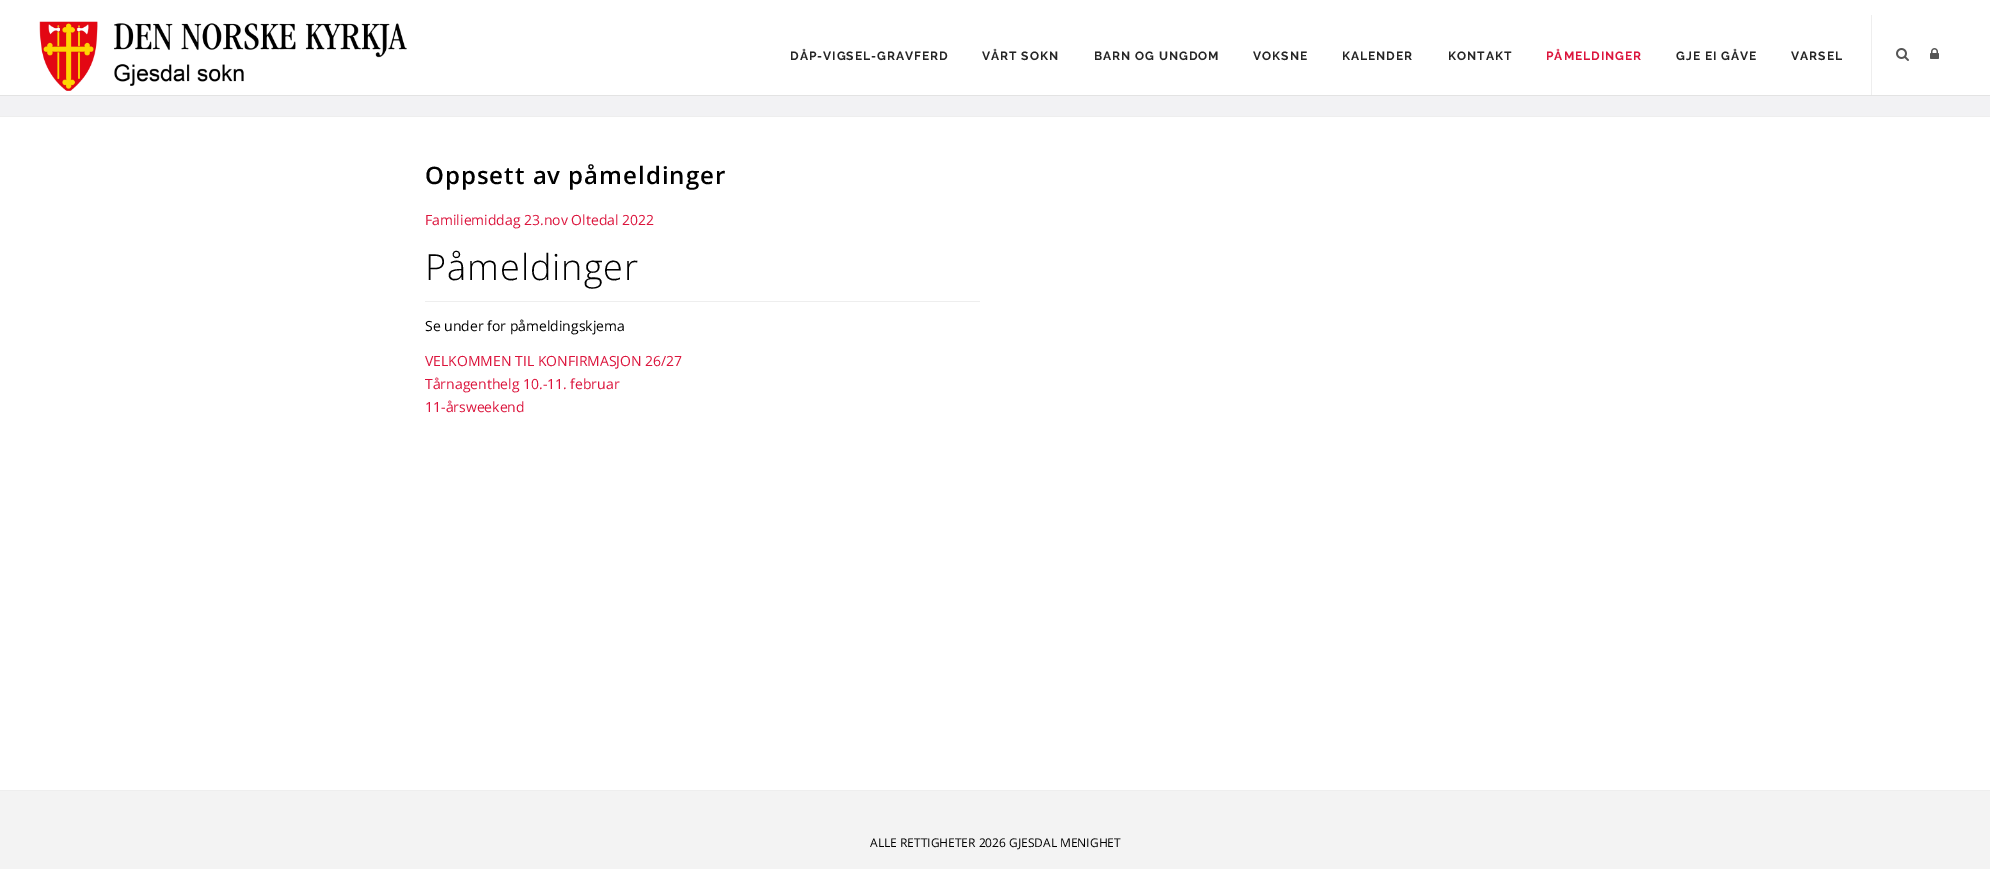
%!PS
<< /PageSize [1990 869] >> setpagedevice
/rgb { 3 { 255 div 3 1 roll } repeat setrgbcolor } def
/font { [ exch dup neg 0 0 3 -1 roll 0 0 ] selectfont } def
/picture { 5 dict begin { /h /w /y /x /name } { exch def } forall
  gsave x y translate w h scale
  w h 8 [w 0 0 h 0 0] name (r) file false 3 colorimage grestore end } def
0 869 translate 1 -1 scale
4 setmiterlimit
255 255 255 rgb
0 0 1990 869 rectfill
227 227 227 rgb
0 95 1990 1 rectfill
(img/1.rgb) 39 21 368 70 picture
238 238 238 rgb
1871 15 1 80 rectfill
(img/2.rgb) 1896 48 13 13 picture
(img/3.rgb) 1930 48 9 11 picture
[
  [0 96 1990 20 242 242 244]
  [0 116 1990 1 238 238 238]
  [425 301 555 1 238 238 238]
  [0 791 1990 78 243 243 243]
  [0 790 1990 1 238 238 238]
] { aload pop rgb rectfill } forall
/Raleway-Bold 12 font
37 37 37 rgb
790 60 moveto 1 0 (DÅP-VIGSEL-GRAVFERD) ashow
982 60 moveto 1 0 (VÅRT SOKN) ashow
1094 60 moveto 1 0 (BARN OG UNGDOM) ashow
1253 60 moveto 1 0 (VOKSNE) ashow
1342 60 moveto 1 0 (KALENDER) ashow
1448 60 moveto 1 0 (KONTAKT) ashow
220 20 60 rgb
1546 60 moveto 1 0 (PÅMELDINGER) ashow
37 37 37 rgb
1676 60 moveto 1 0 (GJE EI GÅVE) ashow
1791 60 moveto 1 0 (VARSEL) ashow
/OpenSans-SemiBold 24 font
0 0 0 rgb
425 184 moveto 1 0 (Oppsett av påmeldinger) ashow
/OpenSans-Regular 14 font
220 20 60 rgb
425 225 moveto (Familiemiddag 23.nov Oltedal 2022) show
/OpenSans-Light 36 font
0 0 0 rgb
425 280 moveto 1 0 (Påmeldinger) ashow
/OpenSans-Regular 14 font
425 331 moveto (Se under for påmeldingskjema) show
220 20 60 rgb
[
  [(VELKOMMEN TIL KONFIRMASJON 26/27) 425 366]
  [(Tårnagenthelg 10.-11. februar) 425 389]
  [(11-årsweekend) 425 412]
] { aload pop moveto show } forall
/OpenSans-Regular 12 font
0 0 0 rgb
870 847 moveto (ALLE RETTIGHETER 2026 GJESDAL MENIGHET) show
showpage
